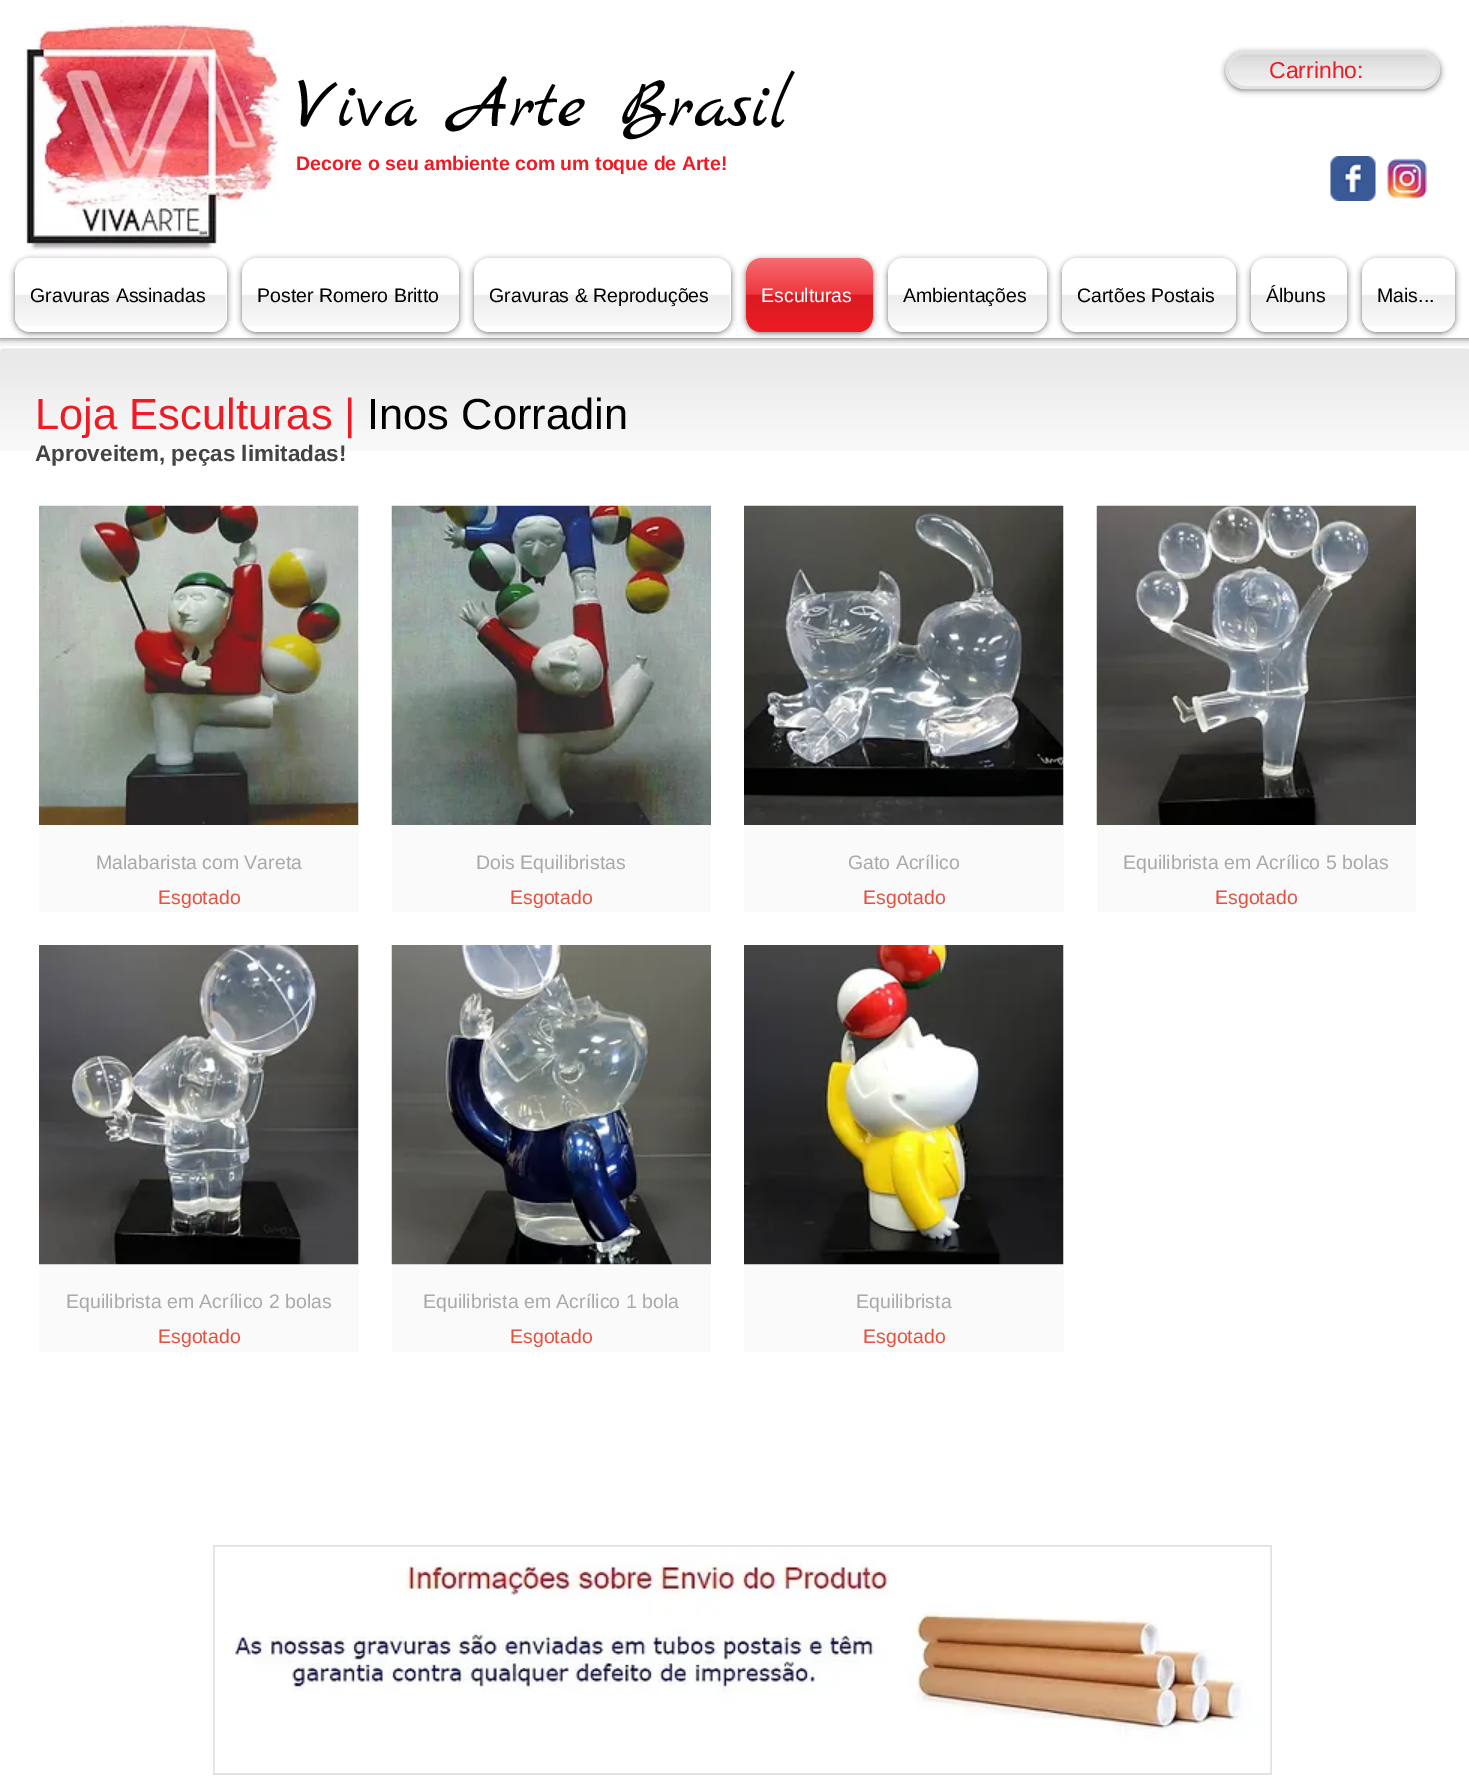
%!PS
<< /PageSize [1469 1790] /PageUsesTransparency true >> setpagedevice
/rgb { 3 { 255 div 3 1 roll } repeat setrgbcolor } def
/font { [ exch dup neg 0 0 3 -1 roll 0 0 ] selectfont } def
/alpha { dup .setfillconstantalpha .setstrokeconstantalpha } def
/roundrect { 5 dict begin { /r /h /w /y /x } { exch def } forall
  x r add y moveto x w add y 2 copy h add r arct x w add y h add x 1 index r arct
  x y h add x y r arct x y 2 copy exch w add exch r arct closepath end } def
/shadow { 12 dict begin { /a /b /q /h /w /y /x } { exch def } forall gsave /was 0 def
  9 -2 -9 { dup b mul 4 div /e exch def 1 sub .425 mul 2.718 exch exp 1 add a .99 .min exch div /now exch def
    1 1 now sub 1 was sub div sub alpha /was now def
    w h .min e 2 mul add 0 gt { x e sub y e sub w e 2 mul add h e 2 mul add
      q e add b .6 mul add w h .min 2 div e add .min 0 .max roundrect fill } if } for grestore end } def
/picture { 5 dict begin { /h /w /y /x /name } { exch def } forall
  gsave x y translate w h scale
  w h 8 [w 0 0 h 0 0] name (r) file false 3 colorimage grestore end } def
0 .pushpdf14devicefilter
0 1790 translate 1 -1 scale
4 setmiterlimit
255 255 255 rgb
0 0 1469 1790 rectfill
(img/14.rgb) 0 348 1469 103 picture
0 0 0 rgb
0 0 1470 338 0 4 0.7 shadow
255 255 255 rgb
0 0 1469 338 rectfill
(img/1.rgb) 24 19 257 232 picture
0 0 0 rgb
1226 53 214 37 18.5 3 0.6 shadow
255 255 255 rgb
1226 51 214 38 19 roundrect fill
(img/2.rgb) 1225 54 215 33 picture
225 225 225 rgb
3 setlinewidth
1227.5 52.5 211 35 17.5 roundrect stroke
(img/3.rgb) 1229 57 207 17 picture
(img/4.rgb) 1330 156 46 45 picture
(img/5.rgb) 1387 158 40 41 picture
0 0 0 rgb
15 260 212 73 15 3 0.6 shadow
255 255 255 rgb
15 258 212 74 15 roundrect fill
(img/6.rgb) 15 294 211 32 picture
0 0 0 rgb
242 260 217 73 15 3 0.6 shadow
255 255 255 rgb
242 258 217 74 15 roundrect fill
(img/7.rgb) 242 294 217 32 picture
0 0 0 rgb
474 260 257 73 15 3 0.6 shadow
255 255 255 rgb
474 258 257 74 15 roundrect fill
(img/8.rgb) 474 294 256 32 picture
0 0 0 rgb
746 260 127 73 15 3 0.6 shadow
237 28 36 rgb
746 258 127 74 15 roundrect fill
(img/9.rgb) 746 258 127 68 picture
0 0 0 rgb
888 260 159 73 15 3 0.6 shadow
255 255 255 rgb
888 258 159 74 15 roundrect fill
(img/10.rgb) 888 294 159 32 picture
0 0 0 rgb
1062 260 174 73 15 3 0.6 shadow
255 255 255 rgb
1062 258 174 74 15 roundrect fill
(img/11.rgb) 1062 294 174 32 picture
0 0 0 rgb
1251 260 96 73 15 3 0.6 shadow
255 255 255 rgb
1251 258 96 74 15 roundrect fill
(img/12.rgb) 1251 294 96 32 picture
0 0 0 rgb
1362 260 93 73 15 3 0.6 shadow
255 255 255 rgb
1362 258 93 74 15 roundrect fill
(img/13.rgb) 1362 294 93 32 picture
250 250 250 rgb
39 506 320 406 rectfill
(img/15.rgb) 39 505 320 320 picture
392 825 319 87 rectfill
(img/16.rgb) 391 505 320 320 picture
744 506 320 406 rectfill
(img/17.rgb) 744 505 320 320 picture
1097 825 319 87 rectfill
(img/18.rgb) 1096 505 320 320 picture
39 945 320 407 rectfill
(img/19.rgb) 39 945 320 320 picture
392 1264 319 88 rectfill
(img/20.rgb) 391 945 320 320 picture
744 945 320 407 rectfill
(img/21.rgb) 744 945 320 320 picture
225 225 225 rgb
213 1545 1059 230 rectfill
(img/22.rgb) 214 1546 1057 227 picture
/MarckScript-Regular 72 font
0 0 0 rgb
296 126 moveto (Viva Arte Brasil) show
/LiberationSans-Regular 23 font
237 28 36 rgb
1269 78 moveto (Carrinho:) show
/LiberationSans-Bold 19.5 font
296 170 moveto (Decore o seu ambiente com um toque de Arte!) show
/LiberationSans-Regular 19.5 font
0 0 0 rgb
[
  [(Gravuras Assinadas) 30 302]
  [(Poster Romero Britto) 257 302]
  [(Gravuras & Reproduções) 489 302]
] { aload pop moveto show } forall
255 255 255 rgb
761 302 moveto (Esculturas) show
0 0 0 rgb
[
  [(Ambientações) 903 302]
  [(Cartões Postais) 1077 302]
  [(Álbuns) 1266 302]
  [(Mais...) 1377 302]
] { aload pop moveto show } forall
/LiberationSans-Regular 43.5 font
237 28 36 rgb
35 429 moveto (Loja Esculturas |) show
0 0 0 rgb
367 429 moveto (Inos Corradin) show
/LiberationSans-Bold 22.5 font
68 68 68 rgb
35 461 moveto (Aproveitem, peças limitadas!) show
/LiberationSans-Regular 19.5 font
170 168 168 rgb
96 869 moveto (Malabarista com Vareta) show
228 82 63 rgb
158 904 moveto (Esgotado) show
170 168 168 rgb
476 869 moveto (Dois Equilibristas) show
228 82 63 rgb
510 904 moveto (Esgotado) show
170 168 168 rgb
848 869 moveto (Gato Acrílico) show
228 82 63 rgb
863 904 moveto (Esgotado) show
170 168 168 rgb
1123 869 moveto (Equilibrista em Acrílico 5 bolas) show
228 82 63 rgb
1215 904 moveto (Esgotado) show
170 168 168 rgb
66 1308 moveto (Equilibrista em Acrílico 2 bolas) show
228 82 63 rgb
158 1343 moveto (Esgotado) show
170 168 168 rgb
423 1308 moveto (Equilibrista em Acrílico 1 bola) show
228 82 63 rgb
510 1343 moveto (Esgotado) show
170 168 168 rgb
856 1308 moveto (Equilibrista) show
228 82 63 rgb
863 1343 moveto (Esgotado) show
.poppdf14devicefilter showpage
